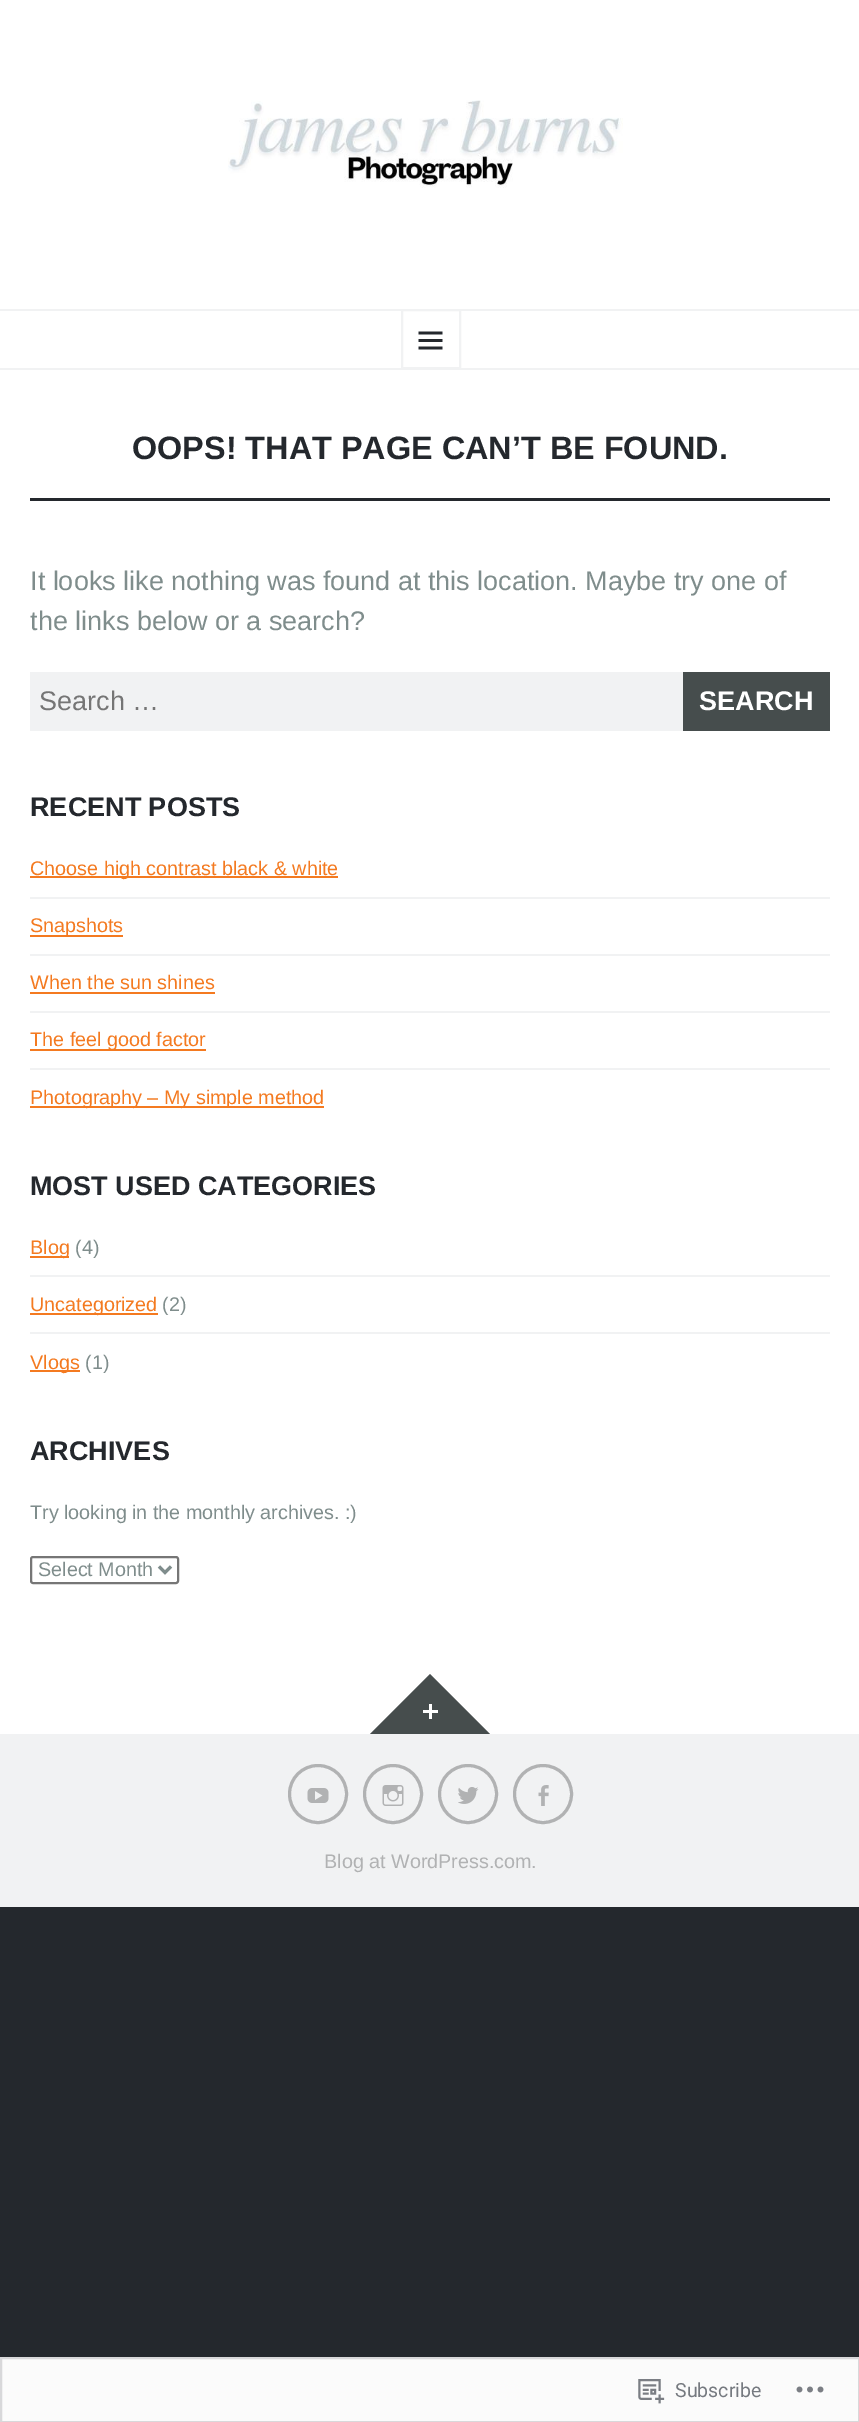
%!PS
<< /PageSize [859 2422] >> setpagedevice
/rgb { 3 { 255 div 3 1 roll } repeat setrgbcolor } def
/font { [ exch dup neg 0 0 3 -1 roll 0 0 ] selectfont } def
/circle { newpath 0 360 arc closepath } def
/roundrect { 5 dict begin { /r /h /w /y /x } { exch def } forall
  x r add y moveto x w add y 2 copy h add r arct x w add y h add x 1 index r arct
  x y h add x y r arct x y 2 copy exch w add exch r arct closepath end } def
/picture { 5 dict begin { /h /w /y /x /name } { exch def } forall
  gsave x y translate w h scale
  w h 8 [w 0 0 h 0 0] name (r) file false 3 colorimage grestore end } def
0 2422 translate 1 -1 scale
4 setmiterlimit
36 40 45 rgb
0 0 859 2422 rectfill
255 255 255 rgb
0 0 859 1734 rectfill
(img/1.rgb) 228 100 395 88 picture
241 242 243 rgb
0 309 859 2 rectfill
0 368 859 2 rectfill
2 setlinewidth
402 310 58 58 rectstroke
(img/2.rgb) 418 331 25 19 picture
[
  [30 498 800 3 36 40 45]
  [30 672 653 59 241 242 243]
  [683 672 147 59 70 77 77]
  [30 897 800 2 241 242 243]
  [30 876 308 2 244 122 32]
  [30 954 800 2 241 242 243]
  [30 935 93 2 244 122 32]
  [30 1011 800 2 241 242 243]
  [30 992 185 2 244 122 32]
  [30 1068 800 2 241 242 243]
  [30 1049 176 2 244 122 32]
  [30 1106 294 2 244 122 32]
  [30 1275 800 2 241 242 243]
  [30 1256 39 2 244 122 32]
  [30 1332 800 2 241 242 243]
  [30 1313 128 2 244 122 32]
  [30 1370 50 2 244 122 32]
] { aload pop rgb rectfill } forall
118 118 118 rgb
31 1557 147 26 2 roundrect stroke
127 141 140 rgb
3 setlinewidth
159 1566.5 moveto 165 1572.5 lineto 171 1566.5 lineto stroke
70 77 77 rgb
490 1734 moveto 370 1734 lineto 430 1674 lineto closepath fill
(img/3.rgb) 423 1704 15 15 picture
241 242 243 rgb
0 1734 859 173 rectfill
177 178 179 rgb
318 1794 28.5 circle stroke
(img/4.rgb) 307 1788 22 15 picture
393 1794 28.5 circle stroke
(img/5.rgb) 382 1785 22 21 picture
468 1794 28.5 circle stroke
(img/6.rgb) 458 1787 21 17 picture
543 1794 28.5 circle stroke
(img/7.rgb) 538 1785 11 21 picture
251 251 251 rgb
1 2358 moveto 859 2358 lineto 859 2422 lineto 1 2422 lineto closepath gsave fill grestore
216 216 218 rgb
2 setlinewidth
stroke
(img/8.rgb) 638 2379 27 25 picture
(img/9.rgb) 796 2386 28 7 picture
/Arimo-Bold 32.4 font
36 40 45 rgb
132 459 moveto (OOPS! THAT PAGE CAN’T BE FOUND.) show
/Arimo-Regular 27 font
127 141 140 rgb
30 590 moveto (It looks like nothing was found at this location. Maybe try one of) show
30 630 moveto (the links below or a search?) show
117 117 117 rgb
39 710 moveto (Search …) show
/Arimo-Bold 27 font
255 255 255 rgb
699 710 moveto (SEARCH) show
36 40 45 rgb
30 816 moveto (RECENT POSTS) show
/Arimo-Regular 19.75 font
244 122 32 rgb
[
  [(Choose high contrast black & white) 30 875]
  [(Snapshots) 30 932]
  [(When the sun shines) 30 989]
  [(The feel good factor) 30 1046]
  [(Photography – My simple method) 30 1104]
] { aload pop moveto show } forall
/Arimo-Bold 27 font
36 40 45 rgb
30 1195 moveto (MOST USED CATEGORIES) show
/Arimo-Regular 19.75 font
244 122 32 rgb
30 1254 moveto (Blog) show
127 141 140 rgb
75 1254 moveto (\(4\)) show
244 122 32 rgb
30 1311 moveto (Uncategorized) show
127 141 140 rgb
162 1311 moveto (\(2\)) show
244 122 32 rgb
30 1369 moveto (Vlogs) show
127 141 140 rgb
85 1369 moveto (\(1\)) show
/Arimo-Bold 27 font
36 40 45 rgb
30 1460 moveto (ARCHIVES) show
/Arimo-Regular 19.75 font
127 141 140 rgb
30 1519 moveto (Try looking in the monthly archives. :\)) show
38 1576 moveto (Select Month) show
177 178 179 rgb
324 1868 moveto (Blog at WordPress.com.) show
/Roboto-Regular 19.5 font
118 122 128 rgb
675 2397 moveto (Subscribe) show
showpage
